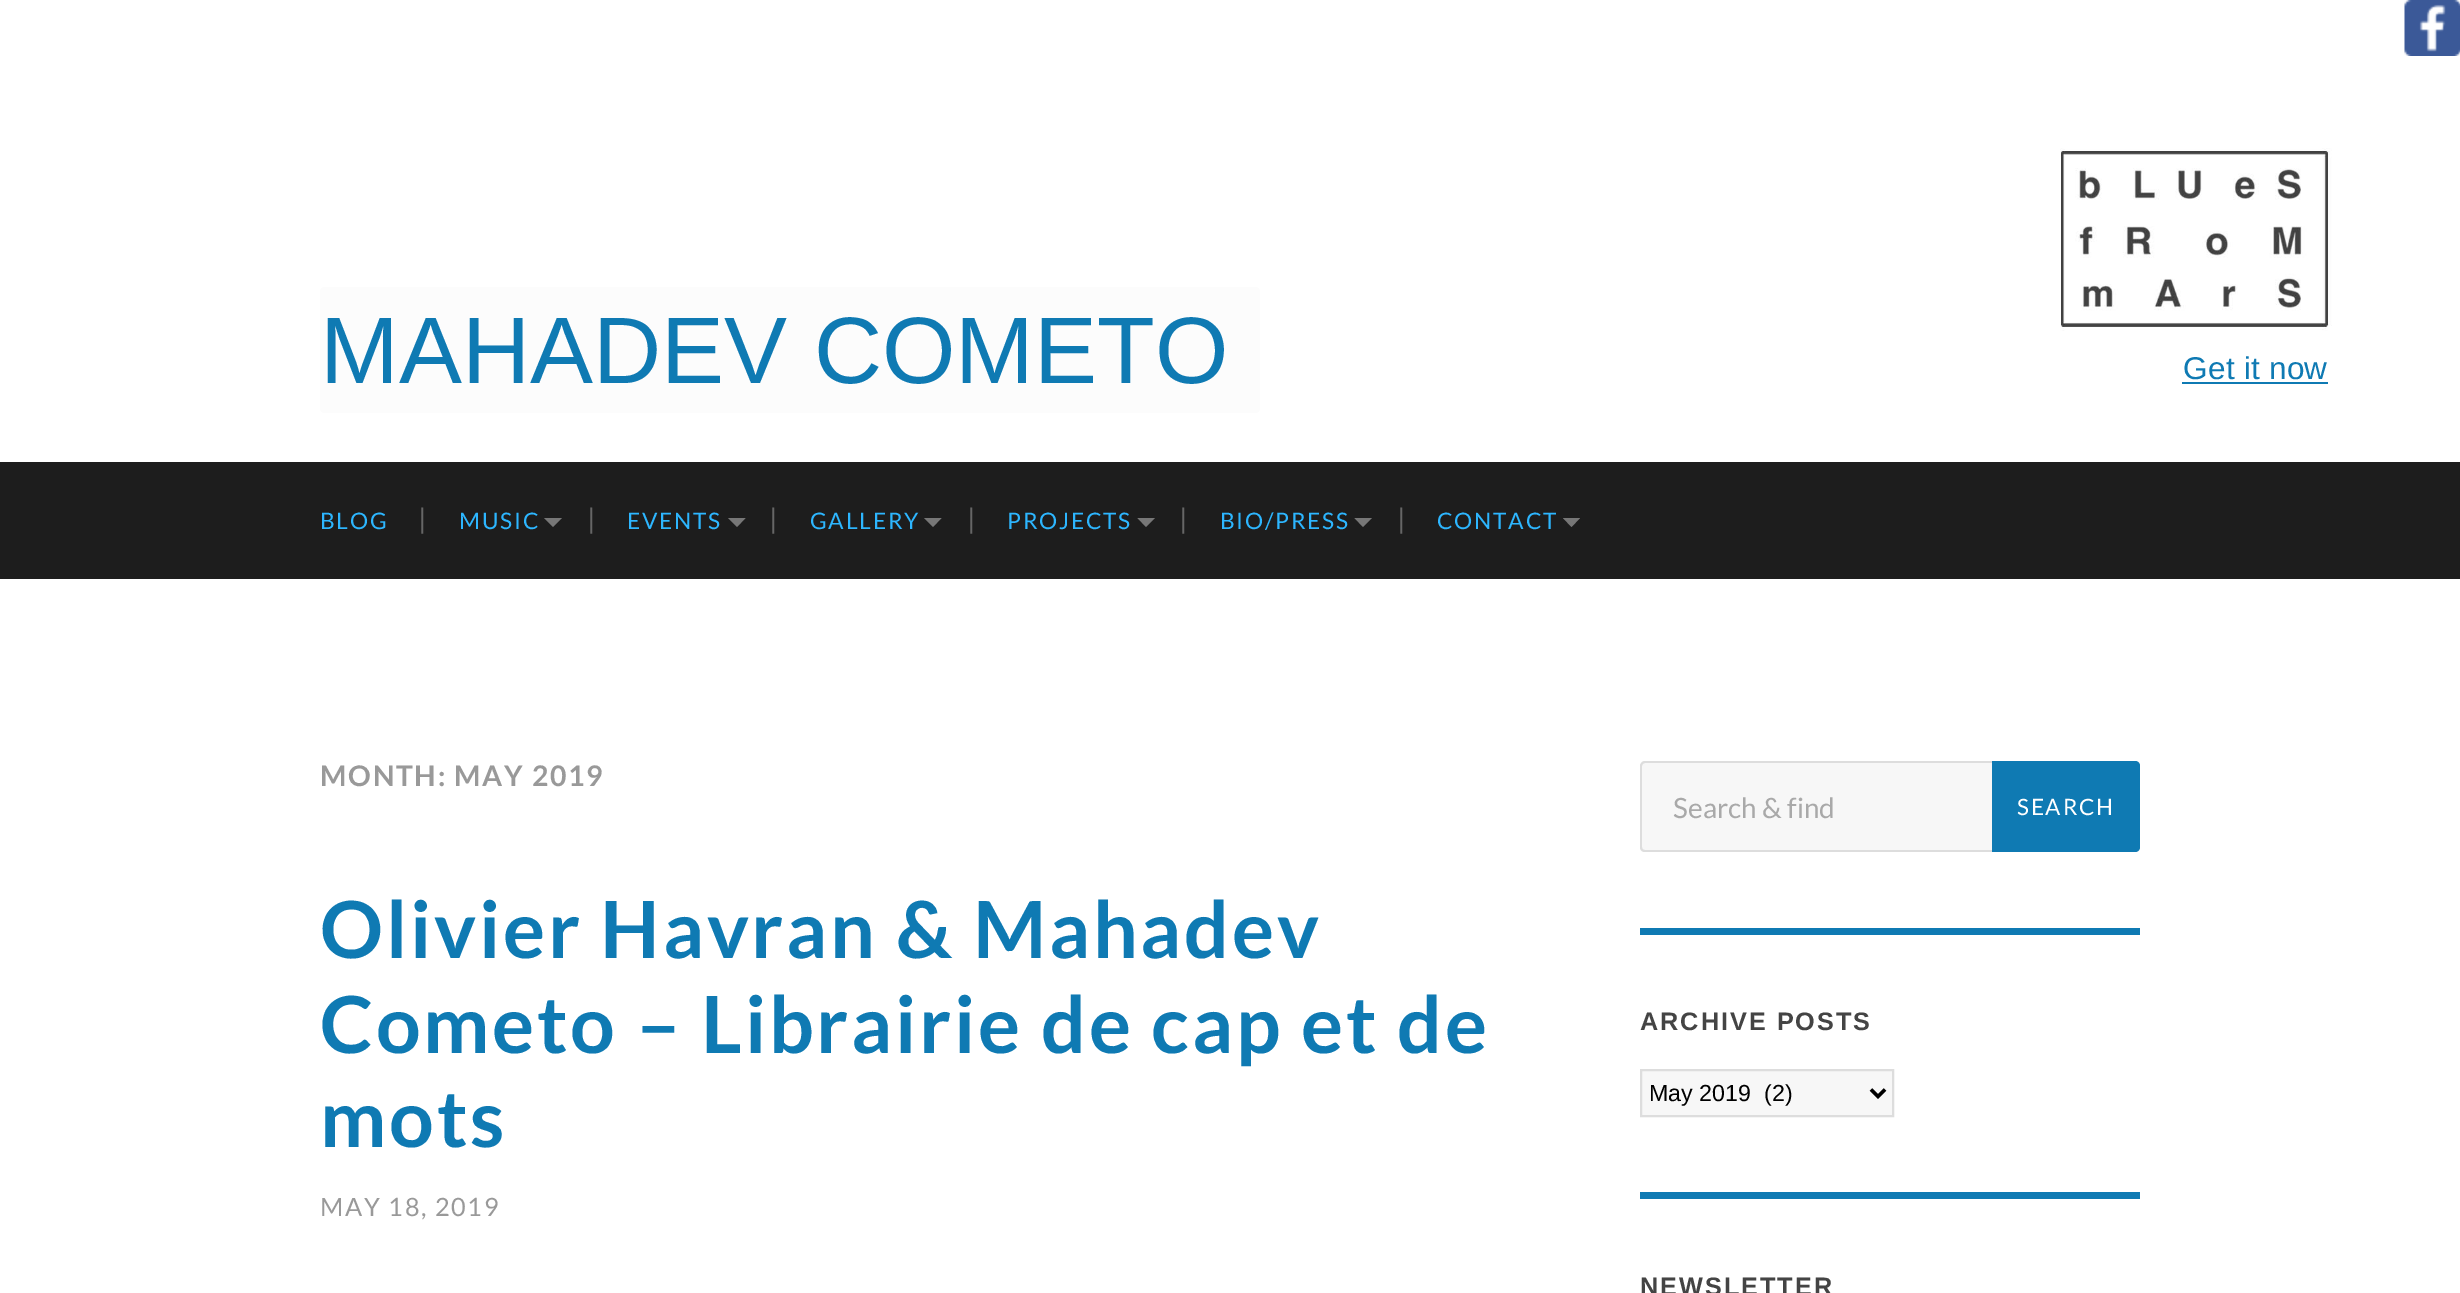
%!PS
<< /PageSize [2460 1293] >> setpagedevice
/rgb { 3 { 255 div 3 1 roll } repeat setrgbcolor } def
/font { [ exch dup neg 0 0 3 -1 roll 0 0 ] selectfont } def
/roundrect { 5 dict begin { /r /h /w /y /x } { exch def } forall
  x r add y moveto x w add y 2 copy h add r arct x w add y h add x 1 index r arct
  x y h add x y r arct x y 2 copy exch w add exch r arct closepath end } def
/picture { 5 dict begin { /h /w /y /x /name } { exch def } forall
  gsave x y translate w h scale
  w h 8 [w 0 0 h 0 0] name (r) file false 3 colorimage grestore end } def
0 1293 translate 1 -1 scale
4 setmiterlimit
255 255 255 rgb
0 0 2460 1293 rectfill
(img/1.rgb) 2404 0 56 56 picture
252 252 252 rgb
320 287 940 126 5 roundrect fill
(img/2.rgb) 2060 148 272 183 picture
15 122 179 rgb
2182 382 146 2 rectfill
29 29 29 rgb
0 462 2460 117 rectfill
119 119 119 rgb
544 518 moveto 562 518 lineto 553 527 lineto closepath fill
728 518 moveto 745.5 518 lineto 737 527 lineto closepath fill
924 518 moveto 941.5 518 lineto 933 527 lineto closepath fill
1137.5 518 moveto 1155 518 lineto 1146 527 lineto closepath fill
1354.5 518 moveto 1372 518 lineto 1363 527 lineto closepath fill
1563 518 moveto 1580 518 lineto 1571.5 527 lineto closepath fill
15 122 179 rgb
1640 928 500 7 rectfill
247 247 247 rgb
1645 761 moveto 2135 761 lineto 2135 852 lineto 1645 852 lineto 1642 852 1640 850 1640 847 curveto 1640 766 lineto 1640 763 1642 761 1645 761 curveto closepath fill
221 221 221 rgb
1645 761 moveto 2135 761 lineto 2135 852 lineto 1645 852 lineto 1642 852 1640 850 1640 847 curveto 1640 766 lineto 1640 764 1642 761 1645 761 curveto closepath 1645 763 moveto 2135 763 lineto 2135 850 lineto 1645 850 lineto 1643 850 1642 849 1642 847 curveto 1642 766 lineto 1642 765 1643 763 1645 763 curveto closepath eofill
15 122 179 rgb
1992 761 moveto 2135 761 lineto 2138 761 2140 763 2140 766 curveto 2140 847 lineto 2140 850 2138 852 2135 852 curveto 1992 852 lineto closepath fill
1640 1192 500 7 rectfill
247 247 247 rgb
1641 1070 moveto 1893 1070 lineto 1893 1116 lineto 1641 1116 lineto closepath gsave fill grestore
221 221 221 rgb
2 setlinewidth
stroke
0 0 0 rgb
3.5 setlinewidth
1871 1089.5 moveto 1878 1096.5 lineto 1885 1089.5 lineto stroke
/LiberationSans-Regular 94.5 font
15 122 179 rgb
320 383 moveto (MAHADEV COMETO) show
/LiberationSans-Regular 31.5 font
2183 379 moveto 0.25 0 (Get it now) ashow
/Lato-Regular 22.75 font
45 182 255 rgb
320 529 moveto 1.75 0 (BLOG) ashow
/Lato-Regular 28 font
102 102 102 rgb
418 529 moveto (|) show
/Lato-Regular 22.75 font
45 182 255 rgb
459 529 moveto 1.75 0 (MUSIC) ashow
/Lato-Regular 28 font
102 102 102 rgb
587 529 moveto (|) show
/Lato-Regular 22.75 font
45 182 255 rgb
627 529 moveto 1.75 0 (EVENTS) ashow
/Lato-Regular 28 font
102 102 102 rgb
769 529 moveto (|) show
/Lato-Regular 22.75 font
45 182 255 rgb
810 529 moveto 1.75 0 (GALLERY) ashow
/Lato-Regular 28 font
102 102 102 rgb
967 529 moveto (|) show
/Lato-Regular 22.75 font
45 182 255 rgb
1007 529 moveto 1.75 0 (PROJECTS) ashow
/Lato-Regular 28 font
102 102 102 rgb
1179 529 moveto (|) show
/Lato-Regular 22.75 font
45 182 255 rgb
1220 529 moveto 1.75 0 (BIO/PRESS) ashow
/Lato-Regular 28 font
102 102 102 rgb
1397 529 moveto (|) show
/Lato-Regular 22.75 font
45 182 255 rgb
1437 529 moveto 1.75 0 (CONTACT) ashow
/Lato-Bold 28.4 font
153 153 153 rgb
320 786 moveto 1.75 0 (MONTH: MAY 2019) ashow
/Lato-Bold 78.75 font
15 122 179 rgb
320 958 moveto 2.75 0 (Olivier Havran & Mahadev) ashow
320 1053 moveto 2.75 0 (Cometo – Librairie de cap et de) ashow
320 1147 moveto 2.75 0 (mots) ashow
/Lato-Regular 25.25 font
153 153 153 rgb
320 1216 moveto 1.75 0 (MAY 18, 2019) ashow
/Lato-Regular 28 font
169 169 169 rgb
1673 818 moveto (Search & find) show
/Lato-Regular 22.5 font
255 255 255 rgb
2017 815 moveto 1.75 0 (SEARCH) ashow
/LiberationSans-Bold 25.25 font
68 68 68 rgb
1640 1030 moveto 2 0 (ARCHIVE POSTS) ashow
/LiberationSans-Regular 23.25 font
0 0 0 rgb
1649 1101 moveto (May 2019  \(2\)) show
/LiberationSans-Bold 25.25 font
68 68 68 rgb
1640 1295 moveto 2 0 (NEWSLETTER) ashow
showpage
